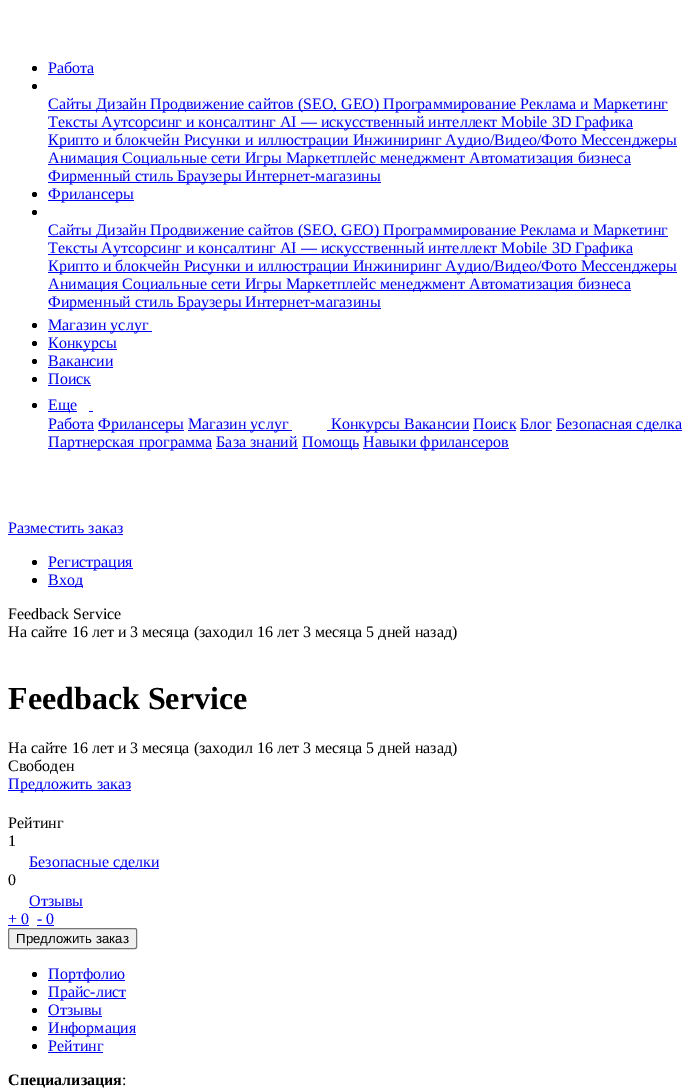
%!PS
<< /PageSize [690 1091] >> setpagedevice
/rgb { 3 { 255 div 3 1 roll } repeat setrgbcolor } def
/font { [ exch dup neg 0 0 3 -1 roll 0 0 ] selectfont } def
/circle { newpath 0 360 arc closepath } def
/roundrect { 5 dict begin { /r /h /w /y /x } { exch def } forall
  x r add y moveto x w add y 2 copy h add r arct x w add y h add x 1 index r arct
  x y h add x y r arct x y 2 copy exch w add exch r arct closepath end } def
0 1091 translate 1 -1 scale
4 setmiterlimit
255 255 255 rgb
0 0 690 1091 rectfill
0 0 0 rgb
34.5 68.5 2.5 circle fill
0 0 238 rgb
48 74 46 1 rectfill
0 0 0 rgb
34.5 86.5 2.5 circle fill
[
  [48 110 620 1 0 0 238]
  [48 128 585 1 0 0 238]
  [48 146 629 1 0 0 238]
  [48 164 583 1 0 0 238]
  [48 182 333 1 0 0 238]
] { aload pop rgb rectfill } forall
0 0 0 rgb
34.5 194.5 2.5 circle fill
0 0 238 rgb
48 200 86 1 rectfill
0 0 0 rgb
34.5 212.5 2.5 circle fill
[
  [48 236 620 1 0 0 238]
  [48 254 585 1 0 0 238]
  [48 272 629 1 0 0 238]
  [48 290 583 1 0 0 238]
  [48 308 333 1 0 0 238]
] { aload pop rgb rectfill } forall
0 0 0 rgb
34.5 325.5 2.5 circle fill
0 0 238 rgb
48 331 104 1 rectfill
0 0 0 rgb
34.5 343.5 2.5 circle fill
0 0 238 rgb
48 349 69 1 rectfill
0 0 0 rgb
34.5 361.5 2.5 circle fill
0 0 238 rgb
48 367 65 1 rectfill
0 0 0 rgb
34.5 379.5 2.5 circle fill
0 0 238 rgb
48 385 43 1 rectfill
0 0 0 rgb
34.5 405.5 2.5 circle fill
[
  [48 411 29 1 0 0 238]
  [89 411 4 1 0 0 238]
  [48 430 46 1 0 0 238]
  [98 430 86 1 0 0 238]
  [188 430 104 1 0 0 238]
  [327 430 142 1 0 0 238]
  [556 430 126 1 0 0 238]
  [473 430 43 1 0 0 238]
  [520 430 32 1 0 0 238]
  [48 448 164 1 0 0 238]
  [302 448 57 1 0 0 238]
  [363 448 146 1 0 0 238]
  [216 448 82 1 0 0 238]
  [8 534 115 1 0 0 238]
] { aload pop rgb rectfill } forall
0 0 0 rgb
34.5 562.5 2.5 circle fill
0 0 238 rgb
48 568 85 1 rectfill
0 0 0 rgb
34.5 580.5 2.5 circle fill
[
  [48 586 35 1 0 0 238]
  [8 790 123 1 0 0 238]
  [29 868 130 1 0 0 238]
  [29 907 54 1 0 0 238]
  [8 925 21 1 0 0 238]
  [37 925 17 1 0 0 238]
] { aload pop rgb rectfill } forall
239 239 239 rgb
8.5 928.5 128 20 1.5 roundrect gsave fill grestore
118 118 118 rgb
stroke
0 0 0 rgb
34.5 974.5 2.5 circle fill
0 0 238 rgb
48 980 77 1 rectfill
0 0 0 rgb
34.5 992.5 2.5 circle fill
0 0 238 rgb
48 998 78 1 rectfill
0 0 0 rgb
34.5 1010.5 2.5 circle fill
0 0 238 rgb
48 1016 54 1 rectfill
0 0 0 rgb
34.5 1028.5 2.5 circle fill
0 0 238 rgb
48 1034 88 1 rectfill
0 0 0 rgb
34.5 1046.5 2.5 circle fill
0 0 238 rgb
48 1052 55 1 rectfill
/LiberationSerif-Regular 16 font
[
  [(Работа) 48 73]
  [(Сайты Дизайн Продвижение сайтов \(SEO, GEO\) Программирование Реклама и Маркетинг) 48 109]
  [(Тексты Аутсорсинг и консалтинг AI — искусственный интеллект Mobile 3D Графика) 48 127]
  [(Крипто и блокчейн Рисунки и иллюстрации Инжиниринг Аудио/Видео/Фото Мессенджеры) 48 145]
  [(Анимация Социальные сети Игры Маркетплейс менеджмент Автоматизация бизнеса) 48 163]
  [(Фирменный стиль Браузеры Интернет-магазины) 48 181]
  [(Фрилансеры) 48 199]
  [(Сайты Дизайн Продвижение сайтов \(SEO, GEO\) Программирование Реклама и Маркетинг) 48 235]
  [(Тексты Аутсорсинг и консалтинг AI — искусственный интеллект Mobile 3D Графика) 48 253]
  [(Крипто и блокчейн Рисунки и иллюстрации Инжиниринг Аудио/Видео/Фото Мессенджеры) 48 271]
  [(Анимация Социальные сети Игры Маркетплейс менеджмент Автоматизация бизнеса) 48 289]
  [(Фирменный стиль Браузеры Интернет-магазины) 48 307]
  [(Магазин услуг) 48 330]
  [(Конкурсы) 48 348]
  [(Вакансии) 48 366]
  [(Поиск) 48 384]
  [(Еще) 48 410]
  [(Работа) 48 429]
  [(Фрилансеры) 98 429]
  [(Магазин услуг) 188 429]
  [(Конкурсы Вакансии Поиск Блог) 331 429]
  [(Безопасная сделка) 556 429]
  [(Партнерская программа База знаний) 48 447]
  [(Помощь) 302 447]
  [(Навыки фрилансеров) 363 447]
  [(Разместить заказ) 8 533]
  [(Регистрация) 48 567]
  [(Вход) 48 585]
] { aload pop moveto show } forall
0 0 0 rgb
8 619 moveto (Feedback Service) show
8 637 moveto (На сайте 16 лет и 3 месяца \(заходил 16 лет 3 месяца 5 дней назад\)) show
/LiberationSerif-Bold 32 font
8 709 moveto (Feedback Service) show
/LiberationSerif-Regular 16 font
8 753 moveto (На сайте 16 лет и 3 месяца \(заходил 16 лет 3 месяца 5 дней назад\)) show
8 771 moveto (Свободен) show
0 0 238 rgb
8 789 moveto (Предложить заказ) show
0 0 0 rgb
8 828 moveto (Рейтинг) show
8 846 moveto (1) show
0 0 238 rgb
29 867 moveto (Безопасные сделки) show
0 0 0 rgb
8 885 moveto (0) show
0 0 238 rgb
[
  [(Отзывы) 29 906]
  [(+ 0) 8 924]
  [(- 0) 37 924]
] { aload pop moveto show } forall
/LiberationSans-Regular 13.25 font
0 0 0 rgb
16 943 moveto (Предложить заказ) show
/LiberationSerif-Regular 16 font
0 0 238 rgb
[
  [(Портфолио) 48 979]
  [(Прайс-лист) 48 997]
  [(Отзывы) 48 1015]
  [(Информация) 48 1033]
  [(Рейтинг) 48 1051]
] { aload pop moveto show } forall
/LiberationSerif-Bold 16 font
0 0 0 rgb
8 1085 moveto (Специализация) show
/LiberationSerif-Regular 16 font
122 1085 moveto (:) show
showpage
